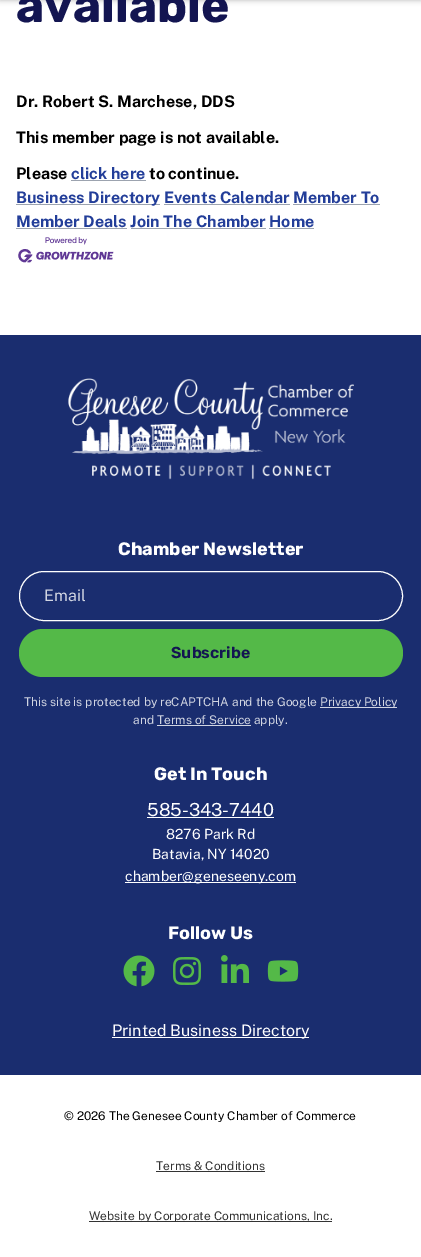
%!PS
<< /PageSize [421 1257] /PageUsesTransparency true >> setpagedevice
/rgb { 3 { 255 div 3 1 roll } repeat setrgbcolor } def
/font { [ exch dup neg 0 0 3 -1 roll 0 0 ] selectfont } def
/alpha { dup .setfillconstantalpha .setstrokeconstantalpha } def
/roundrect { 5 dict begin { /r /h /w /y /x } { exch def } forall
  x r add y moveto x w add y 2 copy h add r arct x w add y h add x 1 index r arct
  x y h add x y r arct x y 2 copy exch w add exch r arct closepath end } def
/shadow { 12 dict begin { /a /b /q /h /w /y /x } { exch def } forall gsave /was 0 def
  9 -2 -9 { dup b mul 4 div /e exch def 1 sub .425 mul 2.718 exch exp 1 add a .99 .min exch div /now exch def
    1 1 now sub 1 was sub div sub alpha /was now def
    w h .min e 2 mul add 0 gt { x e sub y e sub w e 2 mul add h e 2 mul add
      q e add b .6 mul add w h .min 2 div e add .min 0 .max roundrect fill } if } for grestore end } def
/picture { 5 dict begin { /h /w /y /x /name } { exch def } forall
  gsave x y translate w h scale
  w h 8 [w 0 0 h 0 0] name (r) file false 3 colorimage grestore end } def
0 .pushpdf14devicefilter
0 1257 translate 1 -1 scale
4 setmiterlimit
255 255 255 rgb
0 0 421 1257 rectfill
0 0 0 rgb
0 -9 421 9 0 3 0.3 shadow
[
  [71 180 75 1 156 163 175]
  [16 204 144 1 156 163 175]
  [16 228 111 1 156 163 175]
  [131 228 135 1 156 163 175]
  [269 228 45 1 156 163 175]
] { aload pop rgb rectfill } forall
(img/1.rgb) 18 237 96 26 picture
26 45 111 rgb
0 335 421 740 rectfill
(img/2.rgb) 68 378 286 102 picture
255 255 255 rgb
19.5 571.5 383 49 24.5 roundrect stroke
84 185 72 rgb
19 629 384 48 24 roundrect fill
[
  [320 707 77 1 209 213 226]
  [157 725 94 1 209 213 226]
  [147 817 127 1 255 255 255]
  [125 882 171 1 255 255 255]
] { aload pop rgb rectfill } forall
(img/3.rgb) 123 955 32 32 picture
(img/4.rgb) 173 957 28 28 picture
(img/5.rgb) 221 955 28 28 picture
(img/6.rgb) 267 960 32 22 picture
[
  [112 1037 197 1 255 255 255]
  [156 1171 109 1 51 51 51]
  [89 1221 243 1 51 51 51]
] { aload pop rgb rectfill } forall
/Rubik-Bold 48 font
19 21 81 rgb
16 22 moveto (available) show
/PublicSans-Bold 16 font
0 0 0 rgb
[
  [(Dr. Robert S. Marchese, DDS) 16 107]
  [(This member page is not available.) 16 143]
  [(Please) 16 179]
] { aload pop moveto show } forall
35 62 153 rgb
71 179 moveto (click here) show
0 0 0 rgb
149 179 moveto (to continue.) show
35 62 153 rgb
16 203 moveto (Business Directory Events Calendar Member To) show
156 163 175 rgb
164 204 126 1 rectfill
35 62 153 rgb
16 227 moveto (Member Deals Join The Chamber Home) show
156 163 175 rgb
293 204 87 1 rectfill
/Rubik-Bold 18 font
255 255 255 rgb
118 555 moveto (Chamber Newsletter) show
/PublicSans-Regular 16 font
209 213 226 rgb
44 601 moveto (Email) show
/Rubik-SemiBold 16 font
19 21 81 rgb
171 658 moveto (Subscribe) show
/PublicSans-Regular 12 font
209 213 226 rgb
[
  [(This site is protected by reCAPTCHA and the Google) 24 706]
  [(Privacy Policy) 320 706]
  [(and Terms of Service apply.) 133 724]
] { aload pop moveto show } forall
/Rubik-Bold 18 font
255 255 255 rgb
154 780 moveto (Get In Touch) show
/PublicSans-Regular 18 font
147 816 moveto (585-343-7440) show
/PublicSans-Regular 14 font
[
  [(8276 Park Rd) 166 839]
  [(Batavia, NY 14020) 152 859]
  [(chamber@geneseeny.com) 125 881]
] { aload pop moveto show } forall
/Rubik-Bold 18 font
168 939 moveto (Follow Us) show
/PublicSans-Regular 16 font
112 1036 moveto (Printed Business Directory) show
/PublicSans-Regular 12 font
0 0 0 rgb
64 1120 moveto (© 2026 The Genesee County Chamber of Commerce) show
51 51 51 rgb
156 1170 moveto (Terms & Conditions) show
89 1220 moveto (Website by Corporate Communications, Inc.) show
.poppdf14devicefilter showpage
